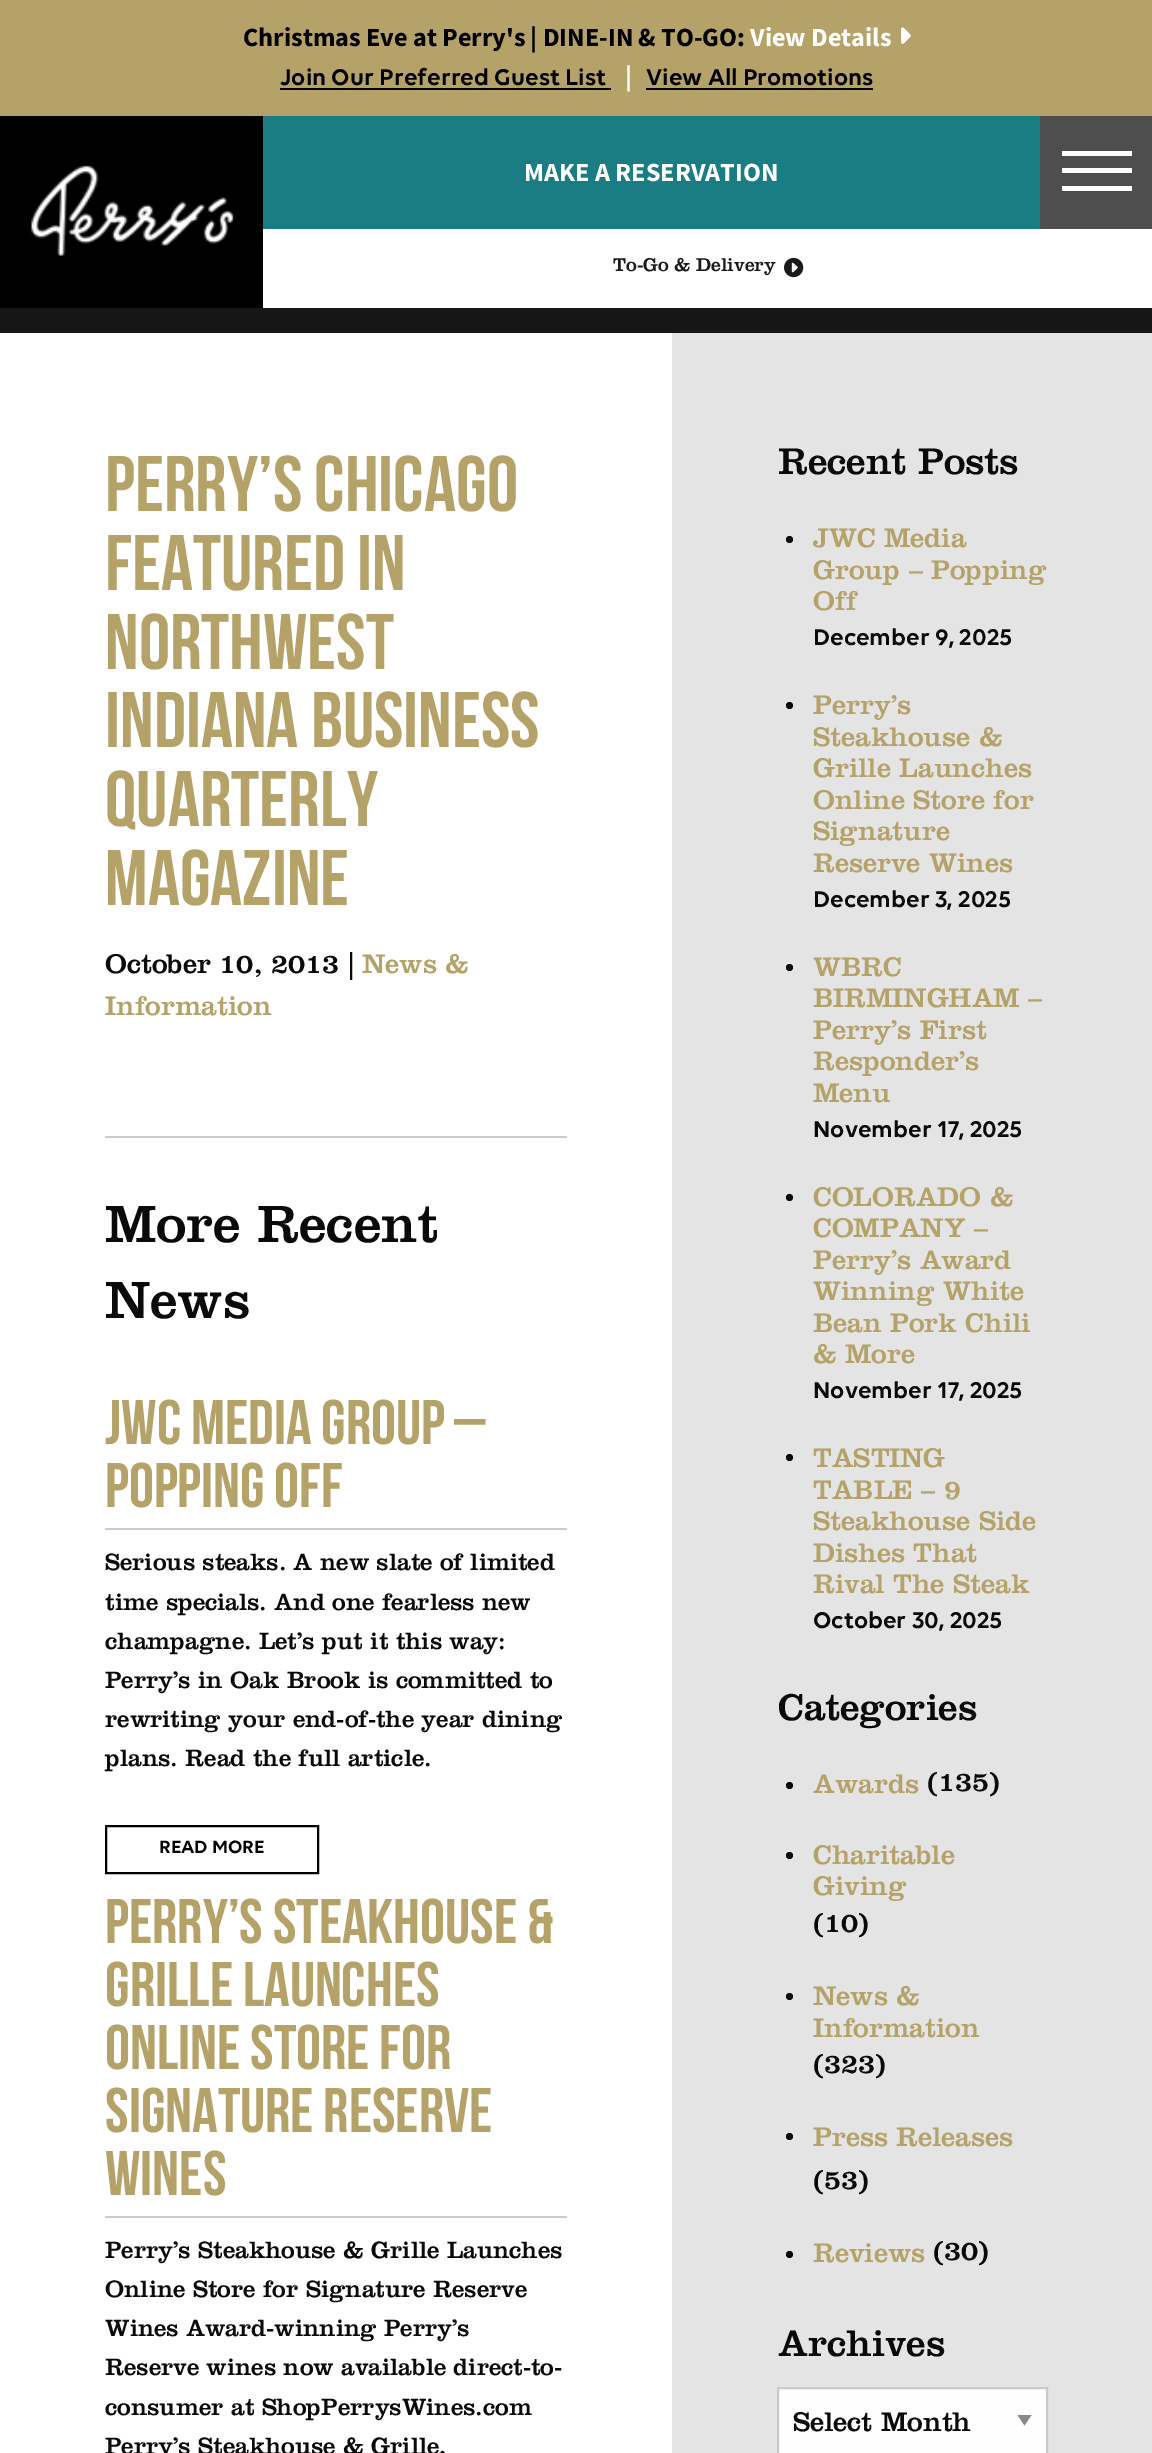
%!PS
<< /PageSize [1152 2453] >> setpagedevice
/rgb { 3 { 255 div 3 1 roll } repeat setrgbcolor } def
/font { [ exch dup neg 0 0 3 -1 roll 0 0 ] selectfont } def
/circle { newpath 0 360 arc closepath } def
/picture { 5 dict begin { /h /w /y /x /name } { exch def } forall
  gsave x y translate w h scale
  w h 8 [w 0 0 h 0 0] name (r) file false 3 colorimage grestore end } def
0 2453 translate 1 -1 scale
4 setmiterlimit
22 22 22 rgb
0 0 1152 2453 rectfill
255 255 255 rgb
263 229 889 79 rectfill
180 162 105 rgb
0 0 1152 116 rectfill
(img/1.rgb) 901 27 10 17 picture
[
  [280 88 331 2 0 0 0]
  [646 88 227 2 0 0 0]
  [0 116 263 192 0 0 0]
] { aload pop rgb rectfill } forall
(img/2.rgb) 31 165 203 91 picture
[
  [263 116 777 113 26 125 131]
  [1040 116 112 113 78 78 78]
  [1062 186 70 5 255 255 255]
  [1062 151 70 5 255 255 255]
  [1062 168 70 5 255 255 255]
] { aload pop rgb rectfill } forall
(img/3.rgb) 784 257 20 21 picture
[
  [0 333 672 2120 255 255 255]
  [105 1136 462 2 202 202 202]
  [105 1528 462 2 202 202 202]
] { aload pop rgb rectfill } forall
0 0 0 rgb
2 setlinewidth
106 1826 212 47 rectstroke
202 202 202 rgb
105 2216 462 2 rectfill
228 228 228 rgb
672 333 480 2120 rectfill
10 10 10 rgb
789.5 539.5 3.5 circle fill
789.5 705.5 3.5 circle fill
789.5 967.5 3.5 circle fill
789.5 1197.5 3.5 circle fill
789.5 1457.5 3.5 circle fill
789.5 1785.5 3.5 circle fill
789.5 1855.5 3.5 circle fill
789.5 1996.5 3.5 circle fill
789.5 2136.5 3.5 circle fill
789.5 2254.5 3.5 circle fill
254 254 254 rgb
779 2389 267 64 rectfill
138 138 138 rgb
1017.5 2415 moveto 1031.5 2415 lineto 1024.5 2425.5 lineto closepath fill
202 202 202 rgb
778 2388 269 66 rectstroke
/SourceSansPro-Bold 26.25 font
0 0 0 rgb
243 46 moveto (Christmas Eve at Perry's | DINE-IN & TO-GO:) show
255 255 255 rgb
750 46 moveto (View Details) show
/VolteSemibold-Regular 24.5 font
0 0 0 rgb
280 85 moveto (Join Our Preferred Guest List) show
/SourceSansPro-Bold 26.25 font
255 255 255 rgb
625 85 moveto (|) show
/VolteSemibold-Regular 24.5 font
0 0 0 rgb
646 85 moveto (View All Promotions) show
/SourceSansPro-Bold 26.25 font
255 255 255 rgb
524 181 moveto (MAKE A RESERVATION) show
/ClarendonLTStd-Regular 19.25 font
26 26 26 rgb
613 271 moveto (To-Go & Delivery) show
/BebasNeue-Regular 78.75 font
180 162 105 rgb
[
  [(Perry’s Chicago) 105 511]
  [(featured in) 105 590]
  [(Northwest) 105 669]
  [(Indiana Business) 105 747]
  [(Quarterly) 105 826]
  [(Magazine) 105 905]
] { aload pop moveto show } forall
/ClarendonLTStd-Regular 28 font
10 10 10 rgb
105 973 moveto (October 10, 2013 |) show
180 162 105 rgb
362 973 moveto (News &) show
105 1015 moveto (Information) show
/ClarendonLTStd-Regular 54.25 font
10 10 10 rgb
105 1242 moveto (More Recent) show
105 1318 moveto (News) show
/BebasNeue-Regular 63 font
180 162 105 rgb
105 1444 moveto (JWC Media Group –) show
105 1507 moveto (Popping Off) show
/ClarendonLTStd-Regular 24.5 font
10 10 10 rgb
[
  [(Serious steaks. A new slate of limited) 105 1570]
  [(time specials. And one fearless new) 105 1610]
  [(champagne. Let’s put it this way:) 105 1649]
  [(Perry’s in Oak Brook is committed to) 105 1688]
  [(rewriting your end-of-the year dining) 105 1727]
  [(plans. Read the full article.) 105 1766]
] { aload pop moveto show } forall
/VolteSemibold-Regular 19.25 font
0 0 0 rgb
159 1853 moveto (READ MORE) show
/BebasNeue-Regular 63 font
180 162 105 rgb
[
  [(Perry’s Steakhouse &) 105 1943]
  [(Grille Launches) 105 2006]
  [(Online Store for) 105 2069]
  [(Signature Reserve) 105 2132]
  [(Wines) 105 2195]
] { aload pop moveto show } forall
/ClarendonLTStd-Regular 24.5 font
10 10 10 rgb
[
  [(Perry’s Steakhouse & Grille Launches) 105 2258]
  [(Online Store for Signature Reserve) 105 2297]
  [(Wines Award-winning Perry’s) 105 2336]
  [(Reserve wines now available direct-to-) 105 2375]
  [(consumer at ShopPerrysWines.com) 105 2415]
  [(Perry’s Steakhouse & Grille,) 105 2454]
] { aload pop moveto show } forall
/ClarendonLTStd-Regular 38.5 font
778 474 moveto (Recent Posts) show
/ClarendonLTStd-Regular 28 font
180 162 105 rgb
[
  [(JWC Media) 813 547]
  [(Group – Popping) 813 579]
  [(Off) 813 610]
] { aload pop moveto show } forall
/VolteSemibold-Regular 24.5 font
10 10 10 rgb
813 645 moveto (December 9, 2025) show
/ClarendonLTStd-Regular 28 font
180 162 105 rgb
[
  [(Perry’s) 813 714]
  [(Steakhouse &) 813 746]
  [(Grille Launches) 813 777]
  [(Online Store for) 813 809]
  [(Signature) 813 840]
  [(Reserve Wines) 813 872]
] { aload pop moveto show } forall
/VolteSemibold-Regular 24.5 font
10 10 10 rgb
813 907 moveto (December 3, 2025) show
/ClarendonLTStd-Regular 28 font
180 162 105 rgb
[
  [(WBRC) 813 976]
  [(BIRMINGHAM –) 813 1007]
  [(Perry’s First) 813 1039]
  [(Responder’s) 813 1070]
  [(Menu) 813 1102]
] { aload pop moveto show } forall
/VolteSemibold-Regular 24.5 font
10 10 10 rgb
813 1137 moveto (November 17, 2025) show
/ClarendonLTStd-Regular 28 font
180 162 105 rgb
[
  [(COLORADO &) 813 1206]
  [(COMPANY –) 813 1237]
  [(Perry’s Award) 813 1269]
  [(Winning White) 813 1300]
  [(Bean Pork Chili) 813 1332]
  [(& More) 813 1363]
] { aload pop moveto show } forall
/VolteSemibold-Regular 24.5 font
10 10 10 rgb
813 1398 moveto (November 17, 2025) show
/ClarendonLTStd-Regular 28 font
180 162 105 rgb
[
  [(TASTING) 813 1467]
  [(TABLE – 9) 813 1499]
  [(Steakhouse Side) 813 1530]
  [(Dishes That) 813 1562]
  [(Rival The Steak) 813 1593]
] { aload pop moveto show } forall
/VolteSemibold-Regular 24.5 font
10 10 10 rgb
813 1628 moveto (October 30, 2025) show
/ClarendonLTStd-Regular 38.5 font
778 1720 moveto (Categories) show
/ClarendonLTStd-Regular 28 font
180 162 105 rgb
813 1793 moveto (Awards) show
10 10 10 rgb
927 1791 moveto (\(135\)) show
180 162 105 rgb
813 1864 moveto (Charitable) show
813 1895 moveto (Giving) show
10 10 10 rgb
813 1932 moveto (\(10\)) show
180 162 105 rgb
813 2005 moveto (News &) show
813 2037 moveto (Information) show
10 10 10 rgb
813 2073 moveto (\(323\)) show
180 162 105 rgb
813 2146 moveto (Press Releases) show
10 10 10 rgb
813 2189 moveto (\(53\)) show
180 162 105 rgb
813 2262 moveto (Reviews) show
10 10 10 rgb
933 2260 moveto (\(30\)) show
/ClarendonLTStd-Regular 38.5 font
778 2356 moveto (Archives) show
/ClarendonLTStd-Regular 28 font
793 2431 moveto (Select Month) show
showpage
